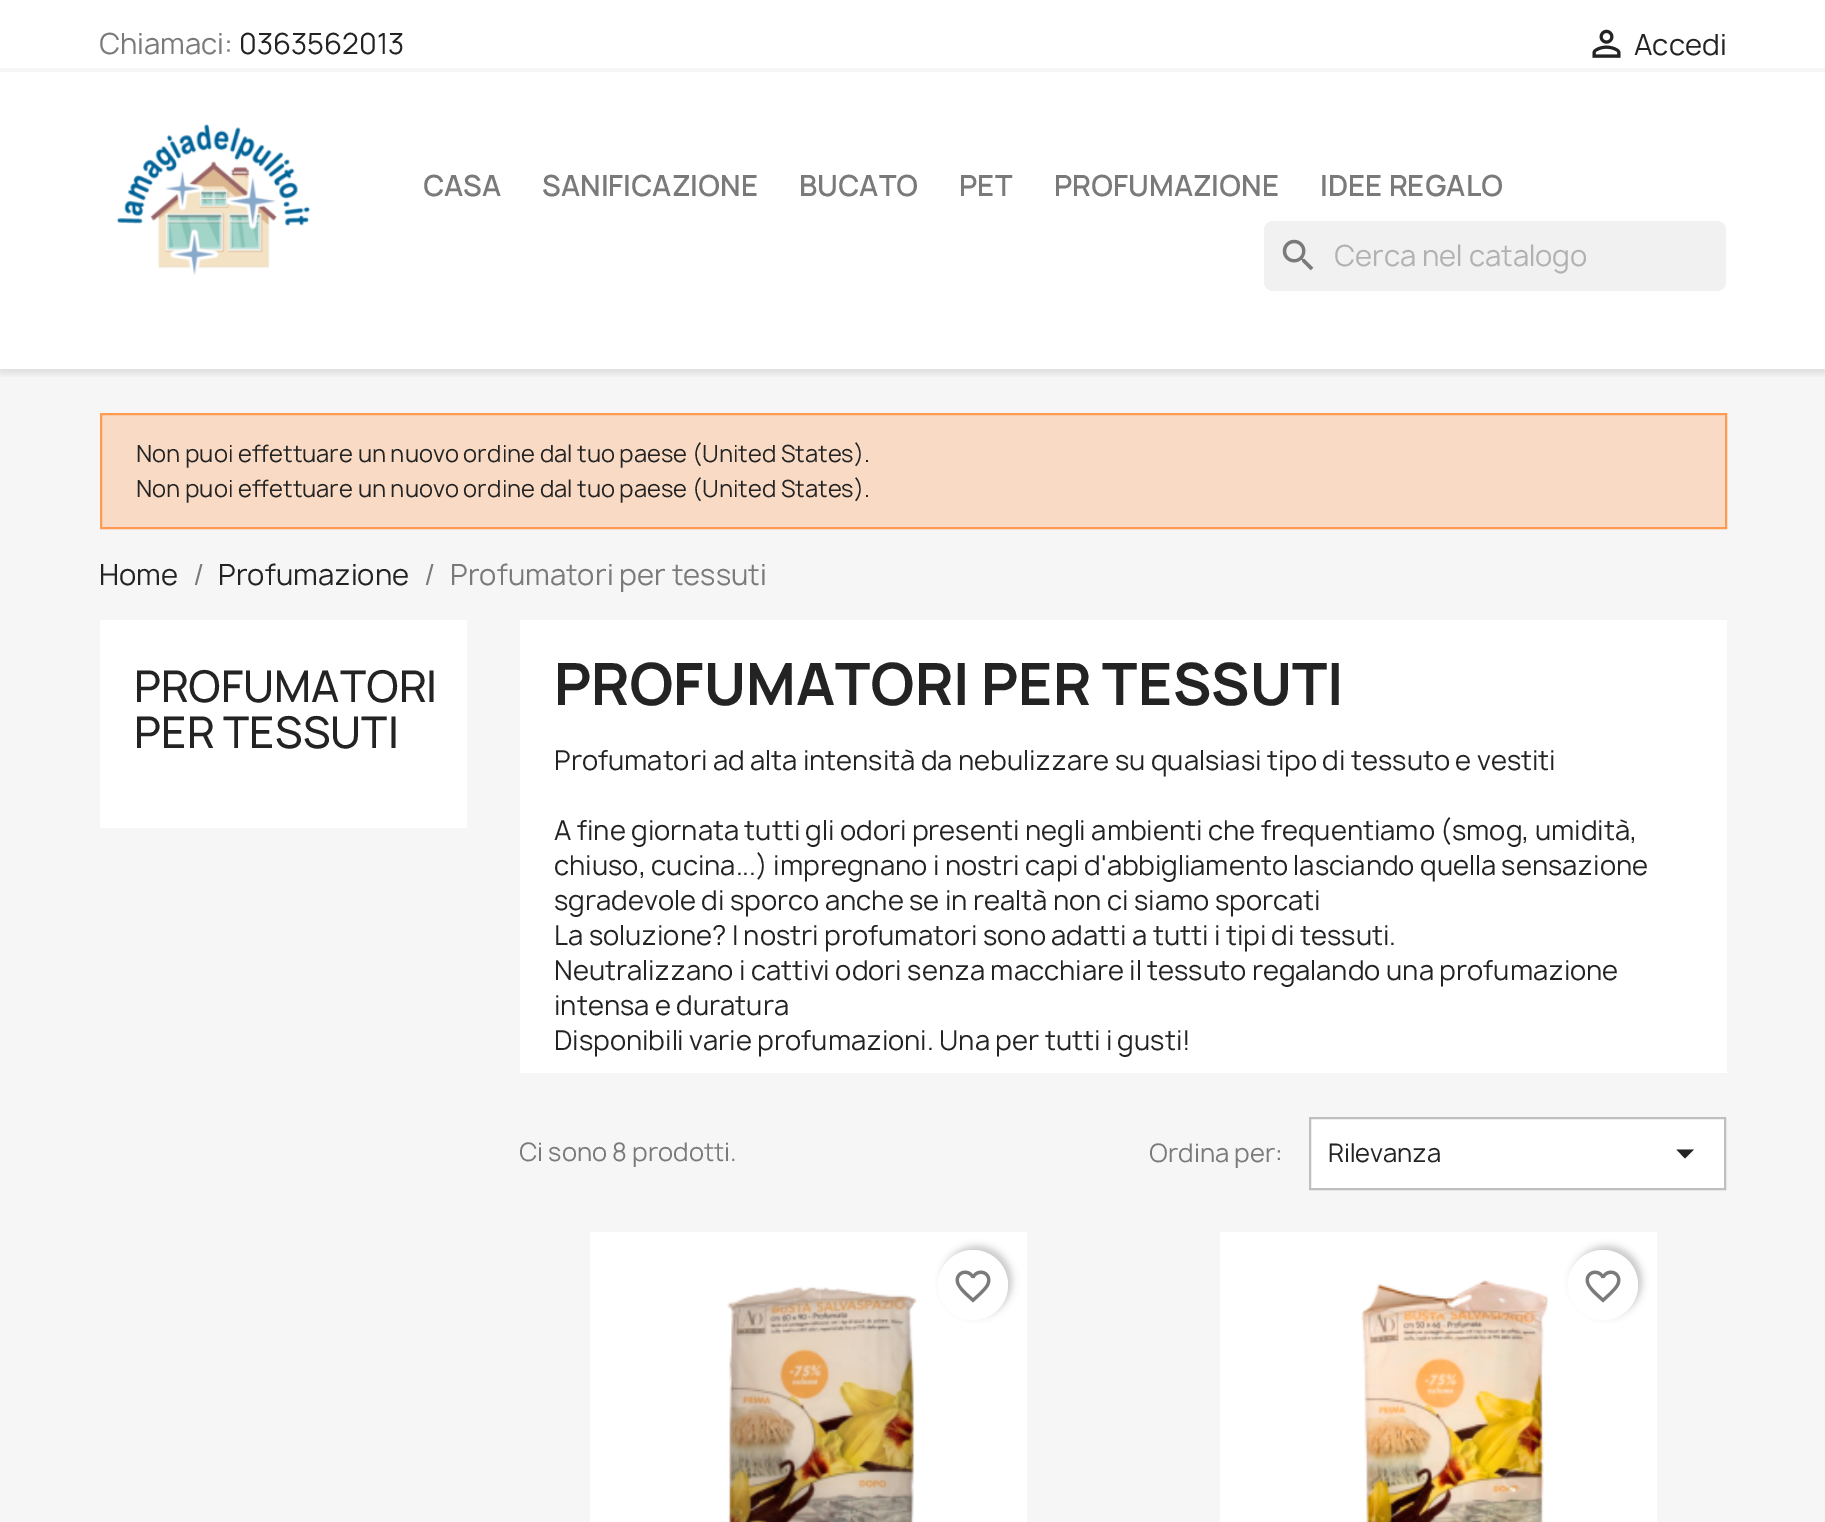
%!PS
<< /PageSize [1825 1522] /PageUsesTransparency true >> setpagedevice
/rgb { 3 { 255 div 3 1 roll } repeat setrgbcolor } def
/font { [ exch dup neg 0 0 3 -1 roll 0 0 ] selectfont } def
/alpha { dup .setfillconstantalpha .setstrokeconstantalpha } def
/circle { newpath 0 360 arc closepath } def
/roundrect { 5 dict begin { /r /h /w /y /x } { exch def } forall
  x r add y moveto x w add y 2 copy h add r arct x w add y h add x 1 index r arct
  x y h add x y r arct x y 2 copy exch w add exch r arct closepath end } def
/shadow { 12 dict begin { /a /b /q /h /w /y /x } { exch def } forall gsave /was 0 def
  9 -2 -9 { dup b mul 4 div /e exch def 1 sub .425 mul 2.718 exch exp 1 add a .99 .min exch div /now exch def
    1 1 now sub 1 was sub div sub alpha /was now def
    w h .min e 2 mul add 0 gt { x e sub y e sub w e 2 mul add h e 2 mul add
      q e add b .6 mul add w h .min 2 div e add .min 0 .max roundrect fill } if } for grestore end } def
/picture { 5 dict begin { /h /w /y /x /name } { exch def } forall
  gsave x y translate w h scale
  w h 8 [w 0 0 h 0 0] name (r) file false 3 colorimage grestore end } def
0 .pushpdf14devicefilter
0 1522 translate 1 -1 scale
4 setmiterlimit
255 255 255 rgb
0 0 1825 1522 rectfill
246 246 246 rgb
0 369 1825 1153 rectfill
gsave
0 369 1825 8 rectclip
0 0 0 rgb
0 4 1825 369 0 4.5 0.11 shadow
grestore
0 68 1825 4 rectfill
(img/1.rgb) 1592 29 29 29 picture
(img/2.rgb) 116 124 195 151 picture
241 241 241 rgb
1264 221 462 70 9 roundrect fill
(img/3.rgb) 1282 239 32 32 picture
249 219 197 rgb
101 414 moveto 1726 414 lineto 1726 528 lineto 101 528 lineto closepath gsave fill grestore
255 154 82 rgb
2 setlinewidth
stroke
255 255 255 rgb
100 620 367 208 rectfill
520 620 1207 453 rectfill
1310 1118 moveto 1725 1118 lineto 1725 1189 lineto 1310 1189 lineto closepath gsave fill grestore
191 191 191 rgb
stroke
35 35 35 rgb
1676.5 1149.5 moveto 1694 1149.5 lineto 1685 1158.5 lineto closepath fill
255 255 255 rgb
590 1232 437 290 rectfill
(img/4.rgb) 727 1286 190 236 picture
0 0 0 rgb
942 1246 70 70 35 3.5 0.2 shadow
255 255 255 rgb
973 1285 35 circle fill
(img/5.rgb) 955 1270 36 33 picture
1220 1232 437 290 rectfill
(img/6.rgb) 1361 1280 188 242 picture
0 0 0 rgb
1572 1246 70 70 35 3.5 0.2 shadow
255 255 255 rgb
1603 1285 35 circle fill
(img/5.rgb) 1585 1270 36 33 picture
/Manrope-Regular 28 font
122 122 122 rgb
99 54 moveto (Chiamaci:) show
35 35 35 rgb
239 54 moveto (0363562013) show
1634 55 moveto (Accedi) show
/Manrope-SemiBold 28 font
122 122 122 rgb
[
  [(CASA) 423 196]
  [(SANIFICAZIONE) 542 196]
  [(BUCATO) 799 196]
  [(PET) 959 196]
  [(PROFUMAZIONE) 1054 196]
  [(IDEE REGALO) 1320 196]
] { aload pop moveto show } forall
/Manrope-Regular 28 font
177 177 177 rgb
1334 266 moveto (Cerca nel catalogo) show
/Manrope-Regular 22.75 font
35 35 35 rgb
136 462 moveto (Non puoi effettuare un nuovo ordine dal tuo paese \(United States\).) show
136 497 moveto (Non puoi effettuare un nuovo ordine dal tuo paese \(United States\).) show
/Manrope-Regular 28 font
99 585 moveto (Home) show
122 122 122 rgb
193 585 moveto (/) show
35 35 35 rgb
218 585 moveto (Profumazione) show
122 122 122 rgb
424 585 moveto (/) show
450 585 moveto (Profumatori per tessuti) show
/Manrope-Medium 42 font
35 35 35 rgb
134 702 moveto (PROFUMATORI) show
134 748 moveto (PER TESSUTI) show
/Manrope-Bold 56 font
554 705 moveto (PROFUMATORI PER TESSUTI) show
/Manrope-Regular 26.25 font
[
  [(Profumatori ad alta intensità da nebulizzare su qualsiasi tipo di tessuto e vestiti) 554 770]
  [(A fine giornata tutti gli odori presenti negli ambienti che frequentiamo \(smog, umidità,) 554 840]
  [(chiuso, cucina...\) impregnano i nostri capi d'abbigliamento lasciando quella sensazione) 554 875]
  [(sgradevole di sporco anche se in realtà non ci siamo sporcati) 554 910]
  [(La soluzione? I nostri profumatori sono adatti a tutti i tipi di tessuti.) 554 945]
  [(Neutralizzano i cattivi odori senza macchiare il tessuto regalando una profumazione) 554 980]
  [(intensa e duratura) 554 1015]
  [(Disponibili varie profumazioni. Una per tutti i gusti!) 554 1050]
] { aload pop moveto show } forall
/Manrope-Regular 24.5 font
122 122 122 rgb
519 1161 moveto (Ci sono 8 prodotti.) show
1149 1162 moveto (Ordina per:) show
35 35 35 rgb
1328 1162 moveto (Rilevanza) show
.poppdf14devicefilter showpage
